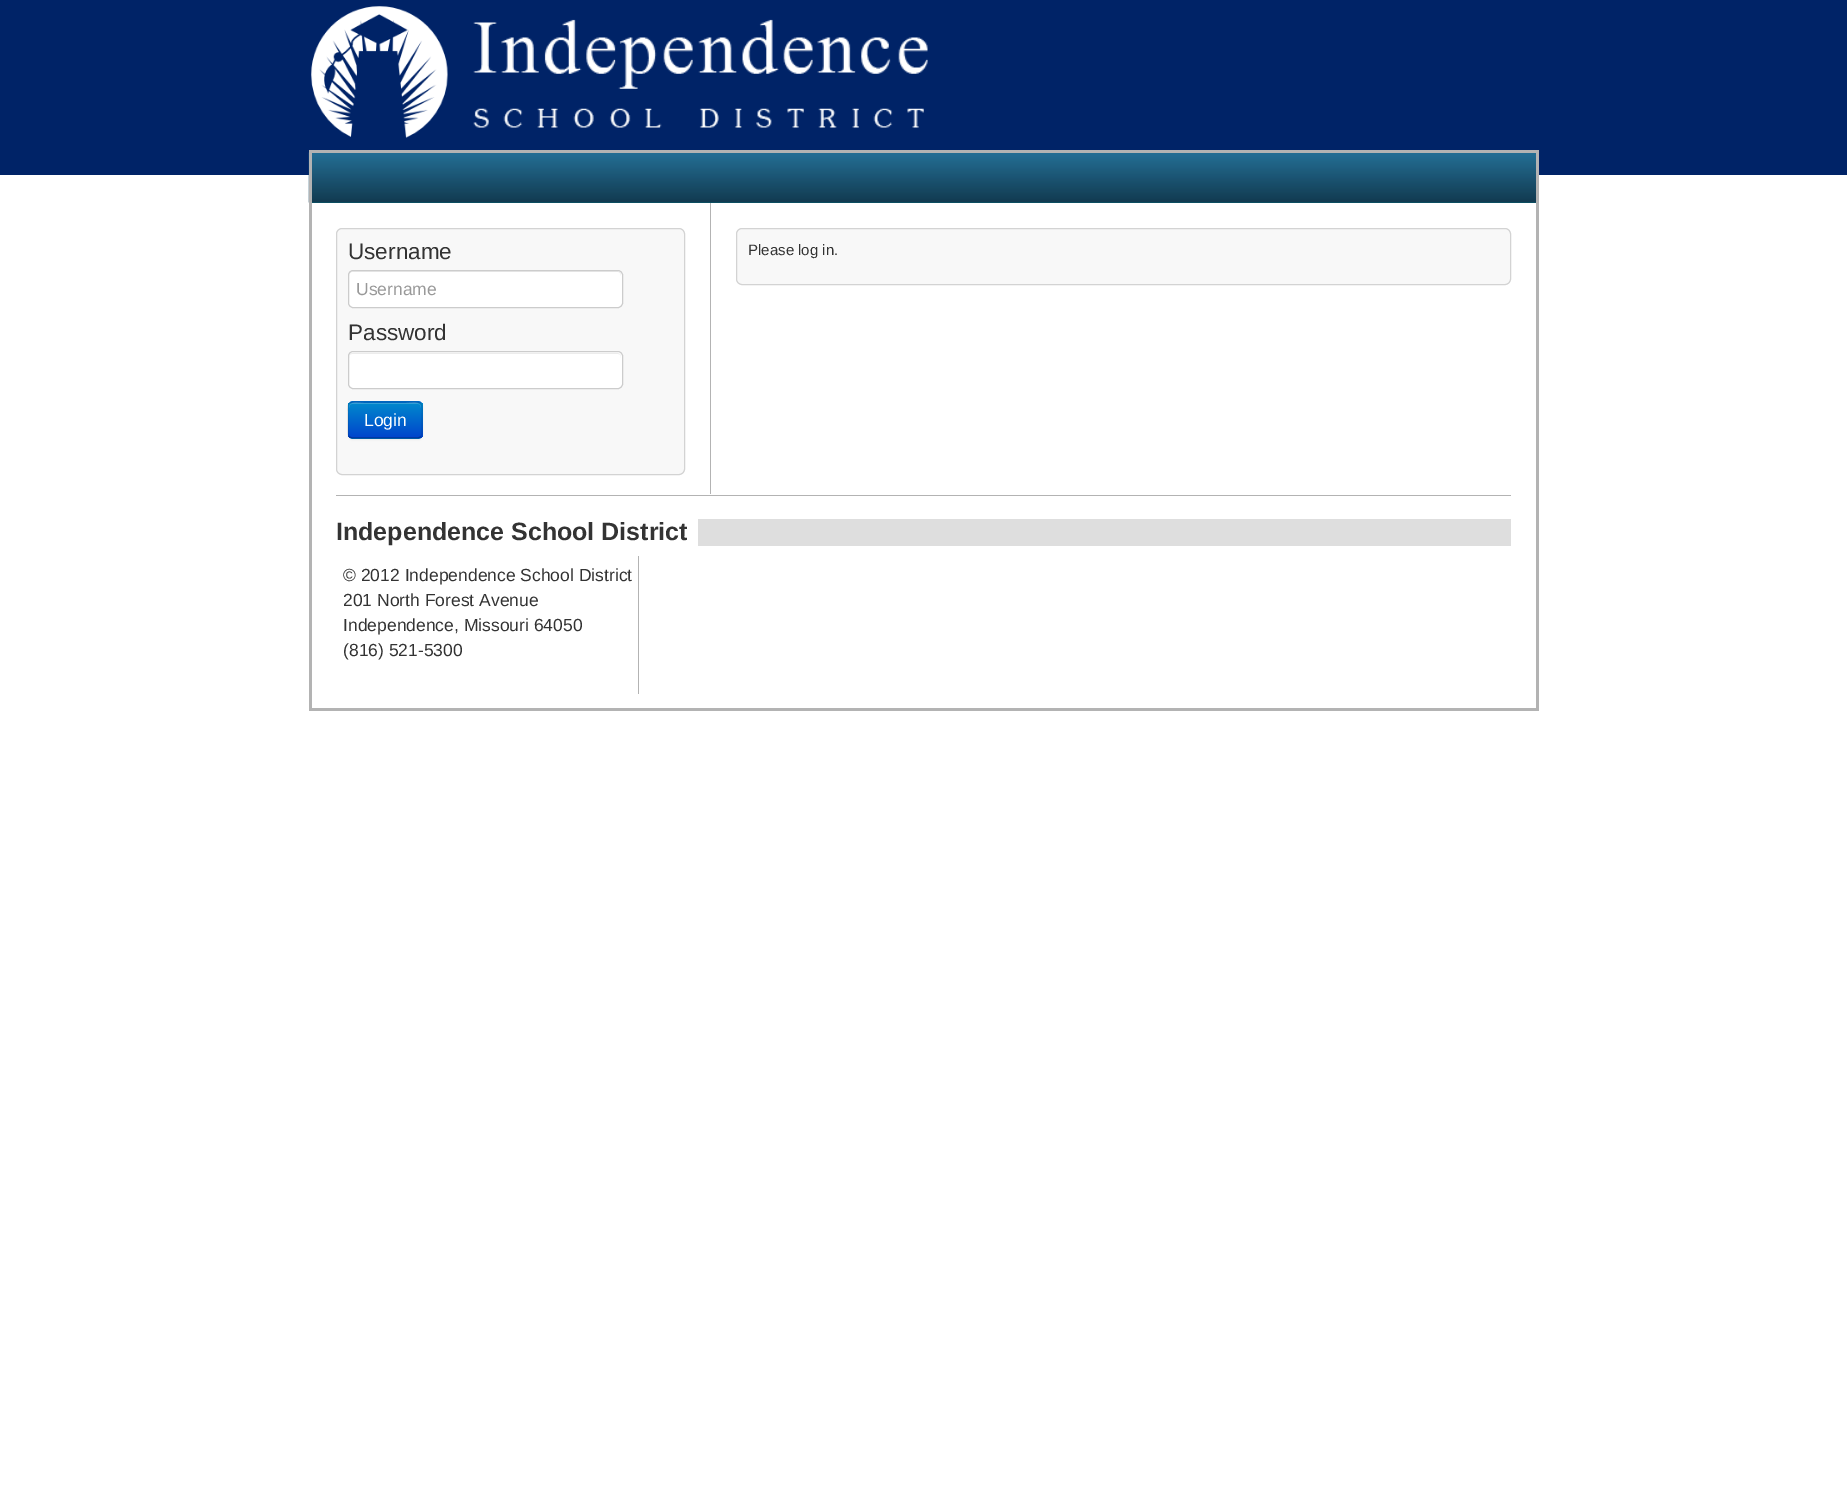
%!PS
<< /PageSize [1847 1486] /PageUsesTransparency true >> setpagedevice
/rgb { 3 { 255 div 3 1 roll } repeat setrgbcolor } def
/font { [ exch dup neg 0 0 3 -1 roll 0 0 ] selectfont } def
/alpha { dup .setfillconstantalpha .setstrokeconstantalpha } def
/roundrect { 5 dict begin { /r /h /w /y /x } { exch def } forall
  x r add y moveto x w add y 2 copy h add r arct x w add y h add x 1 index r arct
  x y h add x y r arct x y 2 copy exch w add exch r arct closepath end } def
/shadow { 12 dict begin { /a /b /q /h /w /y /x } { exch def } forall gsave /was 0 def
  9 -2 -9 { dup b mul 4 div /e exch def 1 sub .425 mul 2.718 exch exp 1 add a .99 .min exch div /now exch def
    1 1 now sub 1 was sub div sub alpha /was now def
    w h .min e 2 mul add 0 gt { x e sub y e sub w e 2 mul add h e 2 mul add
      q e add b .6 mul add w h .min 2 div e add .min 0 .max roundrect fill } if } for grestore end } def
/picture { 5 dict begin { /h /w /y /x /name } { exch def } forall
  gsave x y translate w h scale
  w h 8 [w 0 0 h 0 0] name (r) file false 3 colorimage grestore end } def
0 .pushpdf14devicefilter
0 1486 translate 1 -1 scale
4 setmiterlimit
255 255 255 rgb
0 0 1847 1486 rectfill
0 35 103 rgb
0 0 1847 175 rectfill
(img/1.rgb) 311 6 137 132 picture
(img/2.rgb) 473 19 455 109 picture
6 99 115 rgb
312 202 1224 1 rectfill
(img/3.rgb) 308 152 1228 51 picture
[
  [309 150 1230 3 179 179 179]
  [1536 150 3 560 179 179 179]
  [309 150 3 345 179 179 179]
  [710 203 1 291 179 179 179]
] { aload pop rgb rectfill } forall
248 248 248 rgb
336.5 228.5 348 246 5.5 roundrect gsave fill grestore
211 211 211 rgb
stroke
255 255 255 rgb
348 270 275 38 5 roundrect fill
236 236 236 rgb
352 272 moveto 618 272 lineto 620 272 621 274 621 276 curveto 621 273 620 271 617 271 curveto 353 271 lineto 350 271 349 273 349 276 curveto 349 274 350 272 352 272 curveto closepath fill
204 204 204 rgb
348.5 270.5 274 37 4.5 roundrect stroke
255 255 255 rgb
348 351 275 38 5 roundrect fill
236 236 236 rgb
352 354 moveto 618 354 lineto 620 354 621 355 621 358 curveto 621 355 620 353 617 353 curveto 353 353 lineto 350 353 349 355 349 358 curveto 349 355 350 354 352 354 curveto closepath fill
204 204 204 rgb
348.5 351.5 274 37 4.5 roundrect stroke
0 0 0 rgb
348 403 75 37 5 1 0.05 shadow
0 109 204 rgb
348 401 75 38 5 roundrect fill
gsave
348 401 75 38 5 roundrect clip newpath
gsave 348 403 moveto 423 403 lineto 423 438 lineto 348 438 lineto closepath clip newpath
<< /ShadingType 2 /ColorSpace /DeviceRGB /Coords [385 403 385 438] /Extend [true true] /Function << /FunctionType 2 /Domain [0 1] /C0 [0 0.533 0.8] /C1 [0 0.267 0.8] /N 1 >> >> shfill grestore
grestore
0.2 alpha
255 255 255 rgb
352 404 moveto 418 404 lineto 420 404 421 405 421 408 curveto 421 400 411 403 406 403 curveto 364 403 lineto 359 403 349 400 349 408 curveto 349 405 350 404 352 404 curveto closepath fill
0.25 alpha
0 0 0 rgb
1.2 setlinewidth
420.5 437 moveto 418 438 lineto 352 438 lineto 349.5 437 lineto stroke
0.1 alpha
349.5 437 moveto 347.5 435 348 431.5 348 429 curveto 348 420 lineto 348 401 345 402 363.5 402 curveto 406.5 402 lineto 425 402 422 401 422 420 curveto 422 429 lineto 422 431.5 422.5 435 420.5 437 curveto stroke
1 alpha
248 248 248 rgb
736.5 228.5 774 56 5.5 roundrect gsave fill grestore
211 211 211 rgb
1 setlinewidth
stroke
[
  [309 708 1230 3 179 179 179]
  [309 495 3 215 179 179 179]
  [336 495 1175 1 179 179 179]
  [698 519 813 27 222 222 222]
  [638 556 1 138 179 179 179]
] { aload pop rgb rectfill } forall
/LiberationSans-Regular 22.5 font
51 51 51 rgb
348 259 moveto (Username) show
/LiberationSans-Regular 17.5 font
153 153 153 rgb
356 295 moveto (Username) show
/LiberationSans-Regular 22.5 font
51 51 51 rgb
348 340 moveto (Password) show
/LiberationSans-Regular 17.5 font
255 255 255 rgb
364 426 moveto (Login) show
/LiberationSans-Regular 15 font
51 51 51 rgb
748 255 moveto (Please log in.) show
/LiberationSans-Bold 25 font
336 540 moveto (Independence School District) show
/LiberationSans-Regular 17.5 font
[
  [(© 2012 Independence School District) 343 581]
  [(201 North Forest Avenue) 343 606]
  [(Independence, Missouri 64050) 343 631]
  [(\(816\) 521-5300) 343 656]
] { aload pop moveto show } forall
.poppdf14devicefilter showpage
